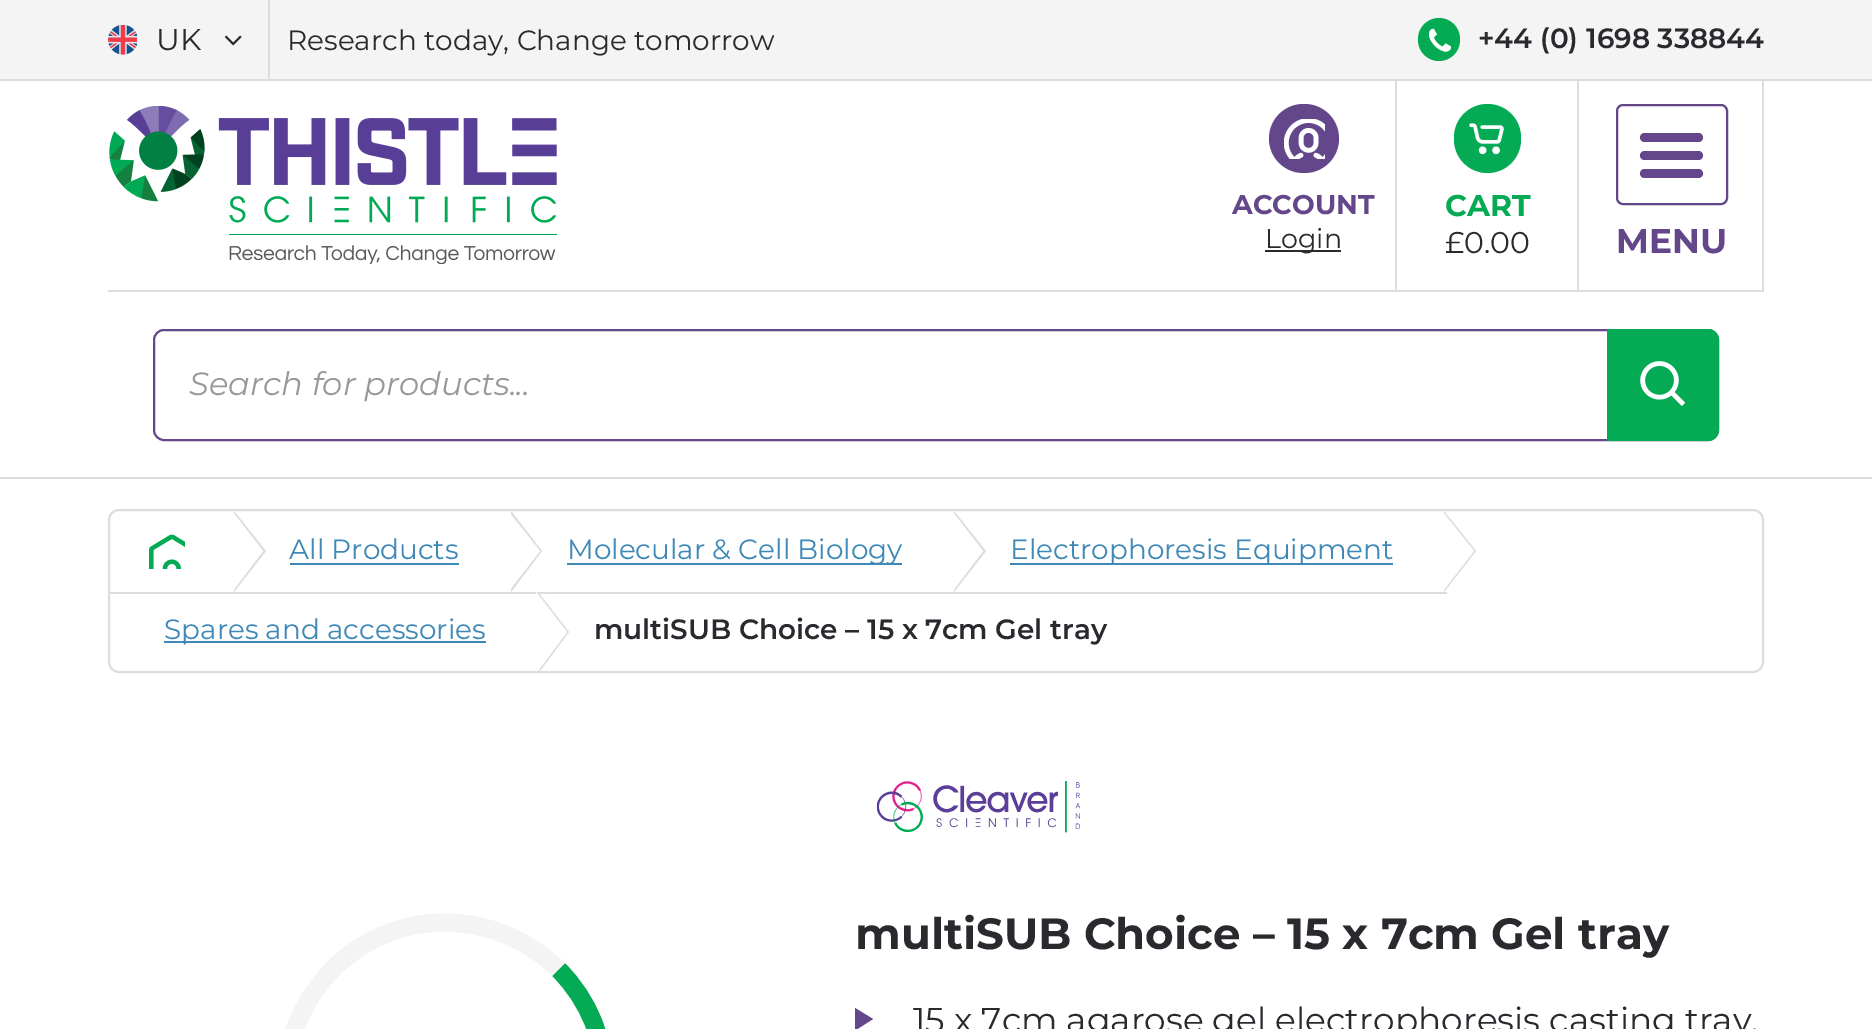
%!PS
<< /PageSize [1872 1029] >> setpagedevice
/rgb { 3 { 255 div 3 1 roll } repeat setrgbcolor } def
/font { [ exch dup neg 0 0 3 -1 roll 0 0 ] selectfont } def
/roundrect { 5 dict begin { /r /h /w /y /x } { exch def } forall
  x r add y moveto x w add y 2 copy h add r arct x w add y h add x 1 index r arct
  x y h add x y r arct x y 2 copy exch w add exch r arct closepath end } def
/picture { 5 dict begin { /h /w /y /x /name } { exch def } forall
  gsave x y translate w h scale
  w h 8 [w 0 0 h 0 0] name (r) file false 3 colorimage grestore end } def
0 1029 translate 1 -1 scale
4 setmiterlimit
255 255 255 rgb
0 0 1872 1029 rectfill
244 244 244 rgb
0 0 1872 79 rectfill
220 221 224 rgb
0 79 1872 2 rectfill
(img/1.rgb) 108 25 29 30 picture
(img/2.rgb) 224 35 18 11 picture
268 0 2 81 rectfill
5 170 84 rgb
1418 18 42 43 21 roundrect fill
(img/3.rgb) 1429 28 22 24 picture
(img/4.rgb) 109 106 448 158 picture
220 221 224 rgb
1395 81 2 209 rectfill
99 71 138 rgb
1269 104 70 69 34.5 roundrect fill
(img/5.rgb) 1284 119 41 40 picture
43 40 46 rgb
1265 250 76 2 rectfill
220 221 224 rgb
1577 81 2 209 rectfill
5 170 84 rgb
1454 104 67 69 33.5 roundrect fill
(img/6.rgb) 1469 123 35 32 picture
220 221 224 rgb
1762 81 2 209 rectfill
99 71 138 rgb
2 setlinewidth
1617 105 110 99 6 roundrect stroke
1640 133 63 9 4.5 roundrect fill
1640 151 63 9 4.5 roundrect fill
1640 169 63 9 4.5 roundrect fill
220 221 224 rgb
108 290 1656 2 rectfill
99 71 138 rgb
154 330 1564 110 10 roundrect stroke
5 170 84 rgb
1607 329 moveto 1708 329 lineto 1714 329 1719 334 1719 340 curveto 1719 430 lineto 1719 436 1714 441 1708 441 curveto 1607 441 lineto closepath fill
(img/7.rgb) 1640 361 45 45 picture
220 221 224 rgb
0 477 1872 2 rectfill
109 510 1654 162 10 roundrect stroke
110 592 1337 2 rectfill
234 592 moveto 234 511 lineto 266 551 lineto closepath fill
255 255 255 rgb
232 592 moveto 232 511 lineto 263 551 lineto closepath fill
(img/8.rgb) 149 534 36 35 picture
220 221 224 rgb
511 592 moveto 511 511 lineto 542 551 lineto closepath fill
255 255 255 rgb
508 592 moveto 508 511 lineto 540 551 lineto closepath fill
62 137 183 rgb
290 563 169 2 rectfill
220 221 224 rgb
954 592 moveto 954 511 lineto 986 551 lineto closepath fill
255 255 255 rgb
952 592 moveto 952 511 lineto 983 551 lineto closepath fill
62 137 183 rgb
567 563 335 2 rectfill
220 221 224 rgb
1444 592 moveto 1444 511 lineto 1476 551 lineto closepath fill
255 255 255 rgb
1442 592 moveto 1442 511 lineto 1474 551 lineto closepath fill
62 137 183 rgb
1010 563 383 2 rectfill
220 221 224 rgb
540 671 moveto 538 671 lineto 538 592 lineto 569 632 lineto closepath fill
255 255 255 rgb
538 671 moveto 536 671 lineto 536 592 lineto 567 632 lineto closepath fill
62 137 183 rgb
164 641 322 2 rectfill
5 170 84 rgb
18 setlinewidth
558.5 969.5 moveto 620.5 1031.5 620.5 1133 558.5 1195 curveto stroke
244 244 244 rgb
558.5 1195 moveto 528.5 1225 487.5 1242 445.5 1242 curveto 338.5 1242 261.5 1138 292.5 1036 curveto 300.5 1011 314 988 332.5 969.5 curveto 354.5 947 383.5 931.5 414 925.5 curveto 466 915 521 932 558.5 969.5 curveto stroke
(img/9.rgb) 876 781 205 52 picture
99 71 138 rgb
855 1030.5 moveto 855 1008 lineto 873 1019 lineto closepath fill
/Montserrat-Regular 30 font
43 40 46 rgb
156 50 moveto (UK) show
/Montserrat-Regular 27.9 font
287 50 moveto (Research today, Change tomorrow) show
/Montserrat-SemiBold 27.9 font
1478 48 moveto (+44 \(0\) 1698 338844) show
/Montserrat-Bold 27 font
99 71 138 rgb
1232 214 moveto (ACCOUNT) show
/Montserrat-Regular 27 font
43 40 46 rgb
1265 248 moveto (Login) show
/Montserrat-Bold 30 font
5 170 84 rgb
1445 216 moveto (CART) show
/Montserrat-Regular 30 font
43 40 46 rgb
1445 253 moveto (£0.00) show
/Montserrat-Bold 34.4 font
99 71 138 rgb
1616 253 moveto (MENU) show
/Montserrat-Italic 32.25 font
153 153 153 rgb
189 395 moveto (Search for products...) show
/Montserrat-Regular 27.9 font
62 137 183 rgb
[
  [(All Products) 289 559]
  [(Molecular & Cell Biology) 567 559]
  [(Electrophoresis Equipment) 1010 559]
  [(Spares and accessories) 164 639]
] { aload pop moveto show } forall
/Montserrat-SemiBold 27.9 font
43 40 46 rgb
594 639 moveto (multiSUB Choice – 15 x 7cm Gel tray) show
/Montserrat-Bold 43.6 font
855 949 moveto (multiSUB Choice – 15 x 7cm Gel tray) show
/Montserrat-Regular 34.4 font
913 1032 moveto (15 x 7cm agarose gel electrophoresis casting tray.) show
showpage
